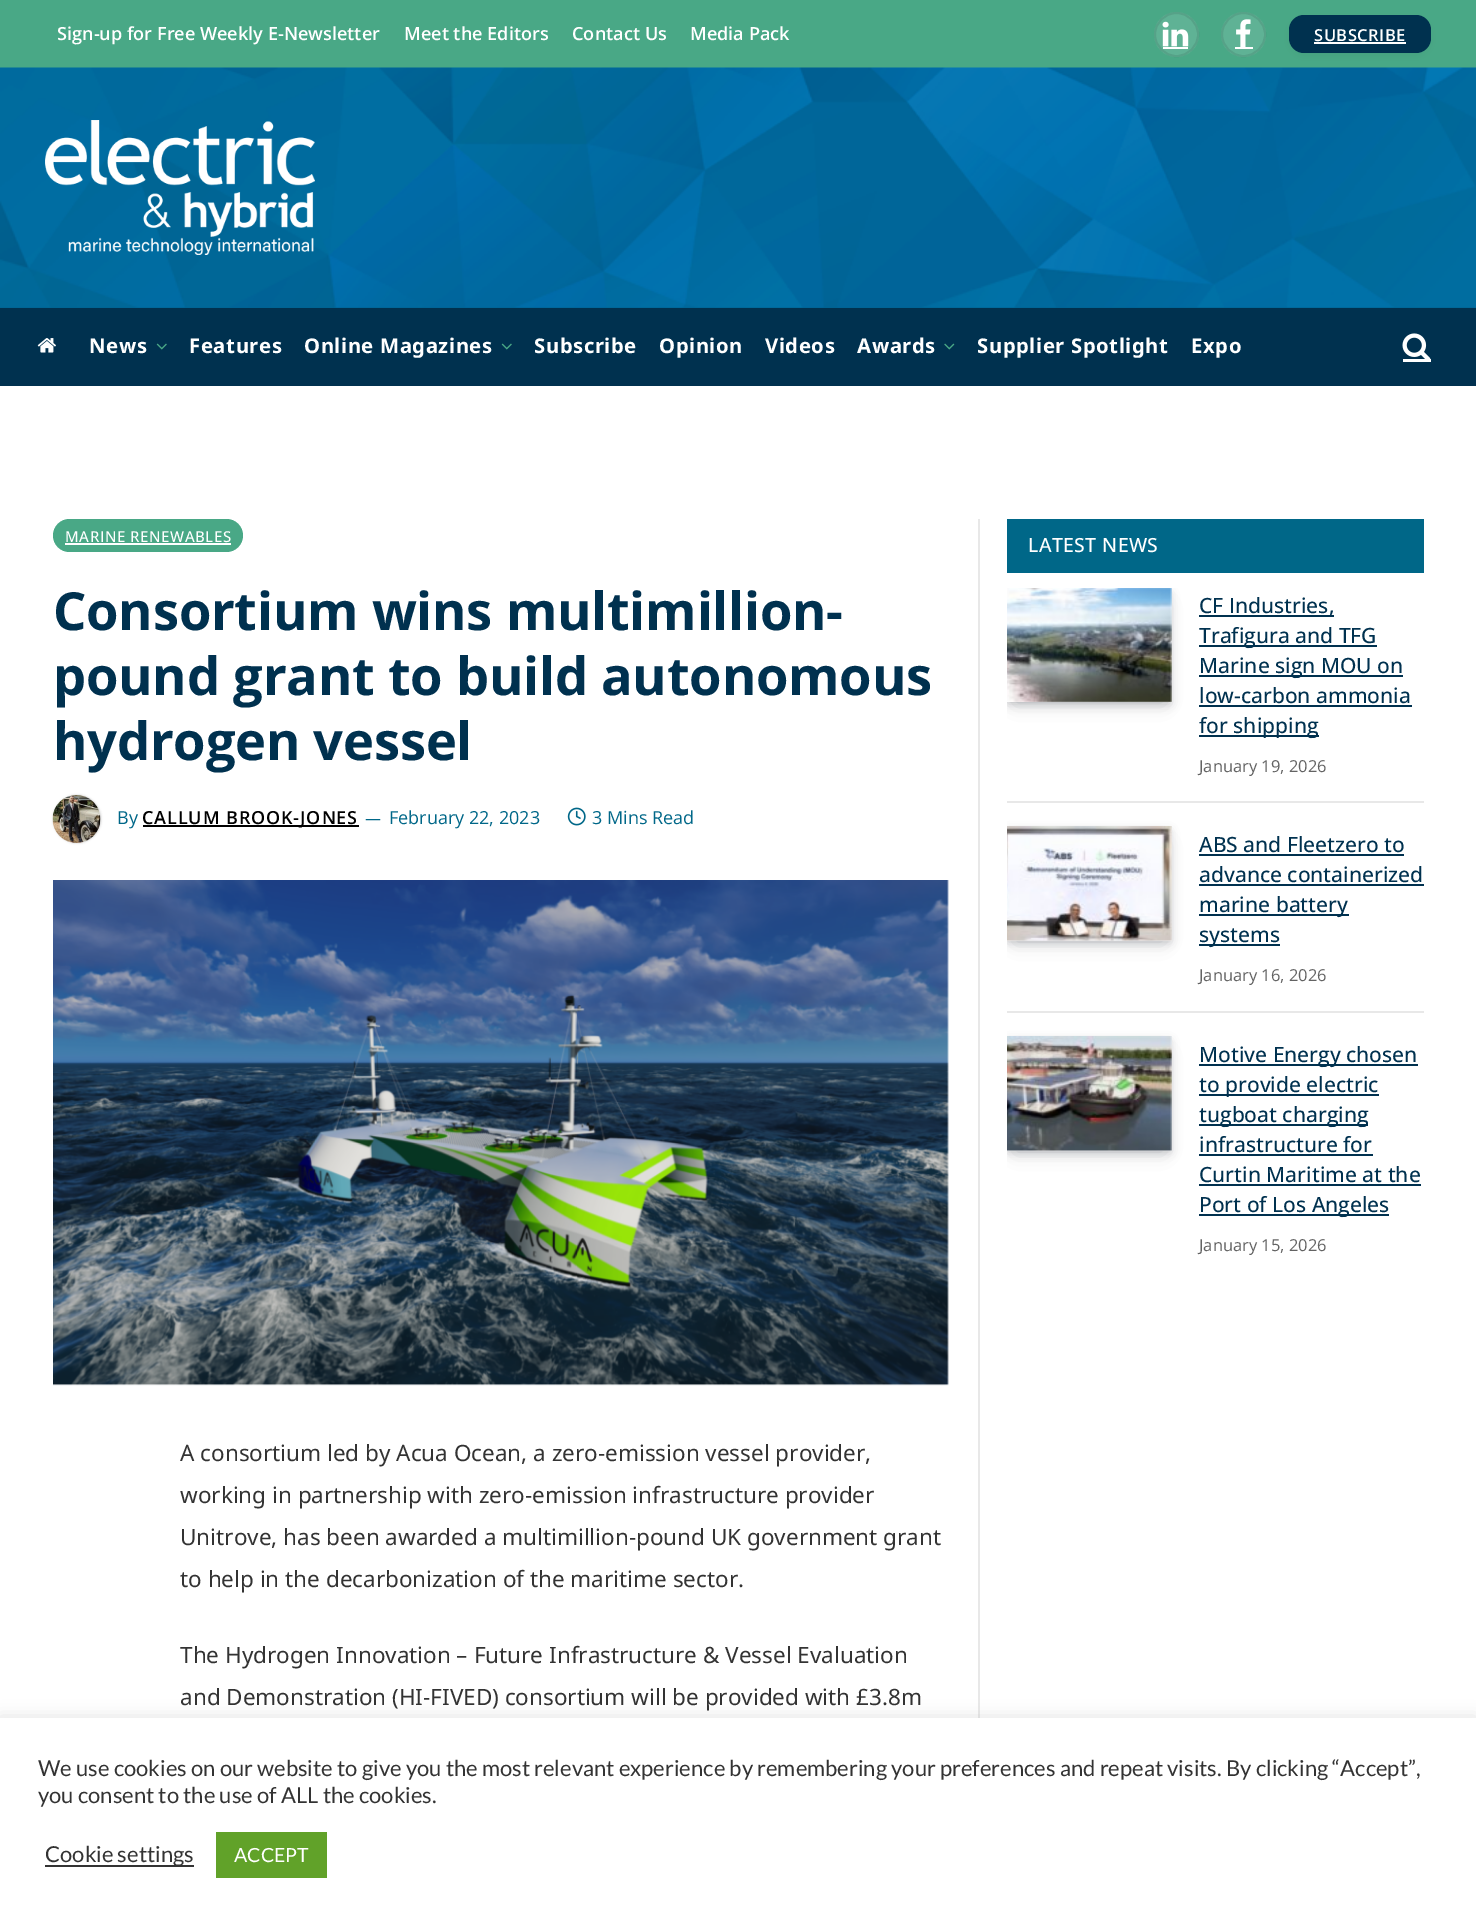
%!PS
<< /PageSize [1476 1923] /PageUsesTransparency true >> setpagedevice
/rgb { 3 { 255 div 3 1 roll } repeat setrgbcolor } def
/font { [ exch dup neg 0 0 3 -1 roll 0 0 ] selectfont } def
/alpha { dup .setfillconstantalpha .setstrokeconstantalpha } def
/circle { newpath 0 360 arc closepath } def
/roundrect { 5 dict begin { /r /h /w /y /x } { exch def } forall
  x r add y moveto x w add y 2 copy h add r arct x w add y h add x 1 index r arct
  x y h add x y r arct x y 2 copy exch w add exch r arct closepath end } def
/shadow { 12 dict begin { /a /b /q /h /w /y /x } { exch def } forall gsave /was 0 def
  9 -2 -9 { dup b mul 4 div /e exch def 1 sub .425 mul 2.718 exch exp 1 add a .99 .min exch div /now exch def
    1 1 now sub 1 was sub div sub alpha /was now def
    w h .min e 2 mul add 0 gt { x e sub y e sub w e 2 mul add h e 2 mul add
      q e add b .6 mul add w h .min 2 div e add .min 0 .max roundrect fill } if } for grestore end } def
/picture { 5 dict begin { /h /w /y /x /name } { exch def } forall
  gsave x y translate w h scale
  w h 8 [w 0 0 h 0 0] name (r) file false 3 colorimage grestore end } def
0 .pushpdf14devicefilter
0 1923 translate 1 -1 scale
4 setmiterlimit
255 255 255 rgb
0 0 1476 1923 rectfill
73 168 134 rgb
0 0 1476 68 rectfill
95 178 149 rgb
1176.5 34.5 22.5 circle fill
0.09 alpha
0 0 0 rgb
2 setlinewidth
1176.5 34.5 21.5 circle stroke
1 alpha
(img/1.rgb) 1162 21 27 26 picture
255 255 255 rgb
1163 47 25 2 rectfill
95 178 149 rgb
1243.5 34.5 22.5 circle fill
0.09 alpha
0 0 0 rgb
1243.5 34.5 21.5 circle stroke
1 alpha
(img/2.rgb) 1236 19 15 28 picture
255 255 255 rgb
1235 47 18 2 rectfill
0 0 0 rgb
1295 24 130 26 9 5 0.16 shadow
0 49 79 rgb
1289 15 142 38 15 roundrect fill
255 255 255 rgb
1314 42 92 2 rectfill
0 97 142 rgb
0 307 1476 1 rectfill
(img/3.rgb) 0 67 1476 241 picture
(img/4.rgb) 45 120 270 135 picture
0 49 79 rgb
0 308 1476 78 rectfill
(img/5.rgb) 37 338 19 15 picture
(img/6.rgb) 156 343 11 7 picture
(img/6.rgb) 501 343 11 7 picture
(img/7.rgb) 944 343 11 7 picture
(img/8.rgb) 1402 333 29 26 picture
255 255 255 rgb
1403 359 28 3 rectfill
73 168 134 rgb
53 519 190 33 16.5 roundrect fill
255 255 255 rgb
65 543 166 2 rectfill
0 0 0 rgb
53 795 48 48 24 1 0.2 shadow
(img/9.rgb) 52 795 49 48 picture
143 825 216 2 rectfill
(img/10.rgb) 567 807 19 19 picture
(img/11.rgb) 53 880 896 506 picture
232 232 232 rgb
978 519 2 1199 rectfill
0 103 136 rgb
1007 519 417 54 rectfill
gsave
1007 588 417 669 rectclip
7 10 25 rgb
1016 606 147 96 0 9 0.2 shadow
1008 593 162 111 0 4.5 0.2 shadow
grestore
(img/12.rgb) 1007 588 165 114 picture
[
  [1199 615 135 2 0 49 79]
  [1199 645 178 2 0 49 79]
  [1199 675 204 2 0 49 79]
  [1199 705 213 2 0 49 79]
  [1199 735 120 2 0 49 79]
  [1007 801 417 2 232 232 232]
] { aload pop rgb rectfill } forall
gsave
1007 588 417 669 rectclip
7 10 25 rgb
1016 845 147 96 0 9 0.2 shadow
1008 831 162 111 0 4.5 0.2 shadow
grestore
(img/13.rgb) 1007 826 165 115 picture
[
  [1199 854 205 2 0 49 79]
  [1199 884 225 2 0 49 79]
  [1199 914 150 2 0 49 79]
  [1199 944 81 2 0 49 79]
  [1007 1011 417 2 232 232 232]
] { aload pop rgb rectfill } forall
gsave
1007 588 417 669 rectclip
7 10 25 rgb
1016 1055 147 96 0 9 0.2 shadow
1008 1041 162 111 0 4.5 0.2 shadow
grestore
(img/14.rgb) 1007 1036 165 115 picture
[
  [1199 1064 219 2 0 49 79]
  [1199 1094 180 2 0 49 79]
  [1199 1124 169 2 0 49 79]
  [1199 1154 174 2 0 49 79]
  [1199 1184 222 2 0 49 79]
  [1199 1214 190 2 0 49 79]
] { aload pop rgb rectfill } forall
172 171 171 rgb
0 1716 1476 206 0 7.5 0.3 shadow
[
  [0 1718 1476 205 255 255 255]
  [45 1865 149 2 51 51 51]
  [216 1832 111 46 97 162 41]
] { aload pop rgb rectfill } forall
/OpenSans-SemiBold 18.1 font
255 255 255 rgb
[
  [(Sign-up for Free Weekly E-Newsletter) 57 40]
  [(Meet the Editors) 404 40]
  [(Contact Us) 572 40]
  [(Media Pack) 690 40]
] { aload pop moveto show } forall
/OpenSans-SemiBold 16.5 font
1314 41 moveto 0.5 0 (SUBSCRIBE) ashow
/NotoSans-Bold 20.25 font
89 353 moveto 0.6 0 (News) ashow
189 353 moveto 0.6 0 (Features) ashow
304 353 moveto 0.6 0 (Online Magazines) ashow
534 353 moveto 0.6 0 (Subscribe) ashow
659 353 moveto 0.6 0 (Opinion) ashow
765 353 moveto 0.6 0 (Videos) ashow
857 353 moveto 0.6 0 (Awards) ashow
977 353 moveto 0.6 0 (Supplier Spotlight) ashow
1191 353 moveto 0.6 0 (Expo) ashow
/OpenSans-Medium 15 font
65 542 moveto 0.6 0 (MARINE RENEWABLES) ashow
/OpenSans-Bold 52.5 font
0 49 79 rgb
53 630 moveto -0.25 0 (Consortium wins multimillion-) ashow
53 695 moveto -0.25 0 (pound grant to build autonomous) ashow
53 760 moveto -0.25 0 (hydrogen vessel) ashow
/OpenSans-Regular 18 font
0 103 136 rgb
117 824 moveto (By) show
/OpenSans-SemiBold 18 font
0 0 0 rgb
142 824 moveto 0.9 0 (CALLUM BROOK-JONES) ashow
/OpenSans-Regular 16 font
0 103 136 rgb
365 824 moveto (—) show
/OpenSans-Regular 18 font
389 824 moveto (February 22, 2023) show
592 824 moveto (3 Mins Read) show
/NotoSans-Regular 22.5 font
51 51 51 rgb
[
  [(A consortium led by Acua Ocean, a zero-emission vessel provider,) 180 1461]
  [(working in partnership with zero-emission infrastructure provider) 180 1503]
  [(Unitrove, has been awarded a multimillion-pound UK government grant) 180 1545]
  [(to help in the decarbonization of the maritime sector.) 180 1587]
  [(The Hydrogen Innovation – Future Infrastructure & Vessel Evaluation) 180 1663]
  [(and Demonstration \(HI-FIVED\) consortium will be provided with £3.8m) 180 1705]
] { aload pop moveto show } forall
/OpenSans-Medium 19.5 font
255 255 255 rgb
1028 552 moveto 0.4 0 (LATEST NEWS) ashow
/OpenSans-Medium 21 font
0 49 79 rgb
[
  [(CF Industries,) 1199 613]
  [(Trafigura and TFG) 1199 643]
  [(Marine sign MOU on) 1199 673]
  [(low-carbon ammonia) 1199 703]
  [(for shipping) 1199 733]
] { aload pop moveto show } forall
/OpenSans-Regular 16.5 font
99 99 99 rgb
1199 772 moveto (January 19, 2026) show
/OpenSans-Medium 21 font
0 49 79 rgb
[
  [(ABS and Fleetzero to) 1199 852]
  [(advance containerized) 1199 882]
  [(marine battery) 1199 912]
  [(systems) 1199 942]
] { aload pop moveto show } forall
/OpenSans-Regular 16.5 font
99 99 99 rgb
1199 981 moveto (January 16, 2026) show
/OpenSans-Medium 21 font
0 49 79 rgb
[
  [(Motive Energy chosen) 1199 1062]
  [(to provide electric) 1199 1092]
  [(tugboat charging) 1199 1122]
  [(infrastructure for) 1199 1152]
  [(Curtin Maritime at the) 1199 1182]
  [(Port of Los Angeles) 1199 1212]
] { aload pop moveto show } forall
/OpenSans-Regular 16.5 font
99 99 99 rgb
1199 1251 moveto (January 15, 2026) show
/Lato-Regular 22 font
51 51 51 rgb
[
  [(We use cookies on our website to give you the most relevant experience by remembering your preferences and repeat visits. By clicking “Accept”,) 38 1776]
  [(you consent to the use of ALL the cookies.) 38 1803]
  [(Cookie settings) 45 1862]
] { aload pop moveto show } forall
/Lato-Regular 19.5 font
255 255 255 rgb
234 1862 moveto (ACCEPT) show
.poppdf14devicefilter showpage
